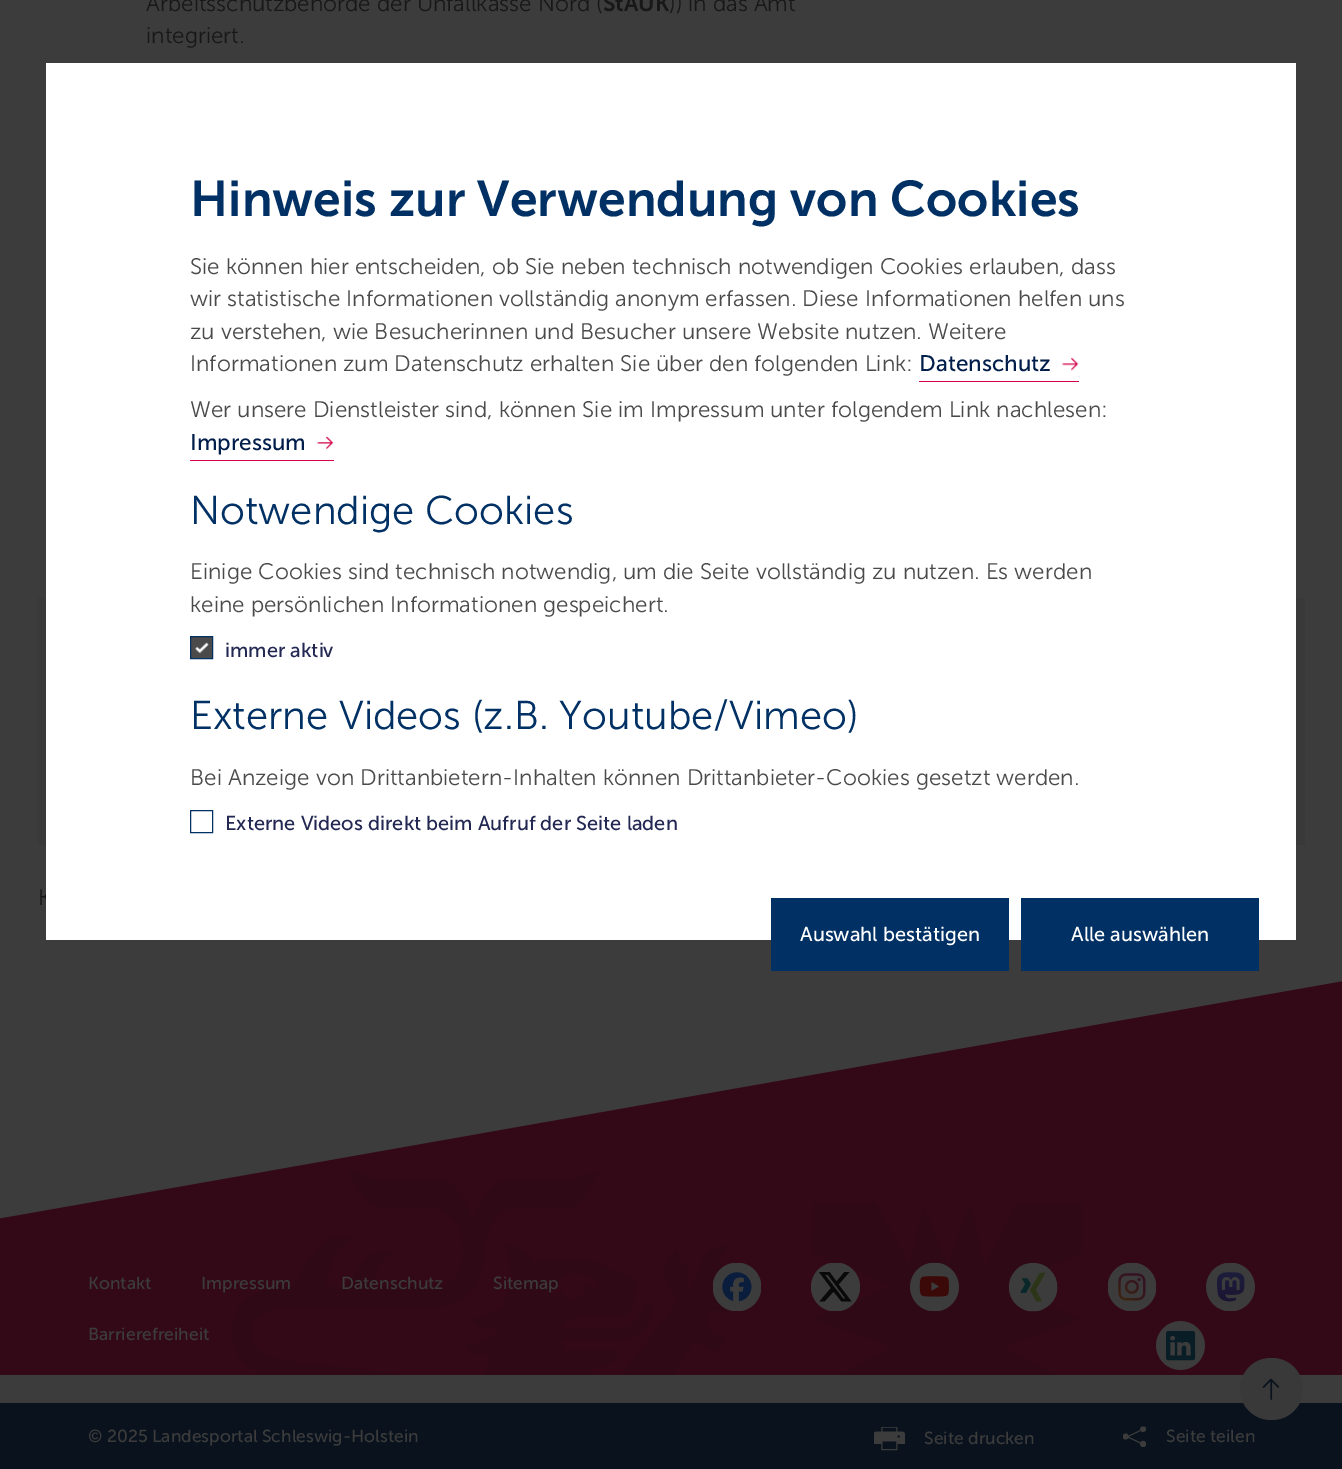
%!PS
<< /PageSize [1342 1469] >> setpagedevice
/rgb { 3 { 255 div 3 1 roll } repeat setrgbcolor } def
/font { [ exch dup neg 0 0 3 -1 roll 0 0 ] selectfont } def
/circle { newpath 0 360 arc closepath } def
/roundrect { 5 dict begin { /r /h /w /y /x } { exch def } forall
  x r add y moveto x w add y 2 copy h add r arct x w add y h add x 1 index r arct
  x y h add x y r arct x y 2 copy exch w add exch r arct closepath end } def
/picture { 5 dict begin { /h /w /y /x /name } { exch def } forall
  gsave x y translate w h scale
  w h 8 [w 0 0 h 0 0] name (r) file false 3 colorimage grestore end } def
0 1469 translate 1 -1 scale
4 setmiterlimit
60 60 60 rgb
0 0 1342 1469 rectfill
57 57 58 rgb
38 598 1267 247 rectfill
(img/1.rgb) 0 981 1342 394 picture
(img/2.rgb) 713 1263 48 48 picture
gsave
811 1263 49 48 rectclip
60 60 60 rgb
835.5 1287 24.5 circle fill
grestore
9 9 9 rgb
844.5 1272 moveto 849.5 1272 lineto 838.5 1284.5 lineto 851.5 1301.5 lineto 841.5 1301.5 lineto 833.5 1291.5 lineto 824.5 1301.5 lineto 819.5 1301.5 lineto 831 1288 lineto 819 1272 lineto 829.5 1272 lineto 836.5 1281.5 lineto closepath 843 1298.5 moveto 845.5 1298.5 lineto 828 1275 lineto 825 1275 lineto closepath fill
(img/3.rgb) 910 1263 49 48 picture
(img/4.rgb) 1008 1263 50 49 picture
(img/5.rgb) 1108 1263 48 48 picture
(img/6.rgb) 1206 1263 49 48 picture
(img/7.rgb) 1156 1321 49 49 picture
9 18 29 rgb
0 1403 1342 66 rectfill
57 57 58 rgb
1240 1358 63 62 31 roundrect fill
(img/8.rgb) 1262 1378 18 22 picture
(img/9.rgb) 874 1427 31 24 picture
(img/10.rgb) 1123 1426 23 21 picture
/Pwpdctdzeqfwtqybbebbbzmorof-Light 22.5 font
24 24 24 rgb
146 11 moveto (Arbeitsschutzbehörde der Unfallkasse Nord \() show
/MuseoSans-SemiBold 22.5 font
603 11 moveto (StAUK) show
/Pwpdctdzeqfwtqybbebbbzmorof-Light 22.5 font
[
  [(\)\) in das Amt) 669 11]
  [(integriert.) 146 43]
  [(K) 38 905]
] { aload pop moveto show } forall
/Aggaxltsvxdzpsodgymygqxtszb-Regular 17.5 font
60 60 60 rgb
[
  [(Kontakt) 88 1289]
  [(Impressum) 201 1289]
  [(Datenschutz) 341 1289]
  [(Sitemap) 493 1289]
  [(Barrierefreiheit) 88 1340]
  [(© 2025 Landesportal Schleswig-Holstein) 88 1442]
  [(Seite drucken) 924 1444]
  [(Seite teilen) 1166 1442]
] { aload pop moveto show } forall
255 255 255 rgb
46 63 1250 877 rectfill
/MuseoSans-SemiBold 50 font
0 48 100 rgb
190 216 moveto (Hinweis zur Verwendung von Cookies) show
/Pwpdctdzeqfwtqybbebbbzmorof-Light 22.5 font
74 74 74 rgb
[
  [(Sie können hier entscheiden, ob Sie neben technisch notwendigen Cookies erlauben, dass) 190 274]
  [(wir statistische Informationen vollständig anonym erfassen. Diese Informationen helfen uns) 190 306]
  [(zu verstehen, wie Besucherinnen und Besucher unsere Website nutzen. Weitere) 190 339]
  [(Informationen zum Datenschutz erhalten Sie über den folgenden Link:) 190 371]
] { aload pop moveto show } forall
212 0 75 rgb
919 381 160 1 rectfill
/Aggaxltsvxdzpsodgymygqxtszb-Regular 22.5 font
1 30 74 rgb
919 371 moveto (Datenschutz) show
(img/11.rgb) 1062 357 17 14 picture
/Pwpdctdzeqfwtqybbebbbzmorof-Light 22.5 font
74 74 74 rgb
190 417 moveto (Wer unsere Dienstleister sind, können Sie im Impressum unter folgendem Link nachlesen:) show
212 0 75 rgb
190 460 144 1 rectfill
/Aggaxltsvxdzpsodgymygqxtszb-Regular 22.5 font
1 30 74 rgb
190 450 moveto (Impressum) show
(img/12.rgb) 317 436 17 13 picture
/Pwpdctdzeqfwtqybbebbbzmorof-Light 40 font
0 48 100 rgb
190 524 moveto (Notwendige Cookies) show
/Pwpdctdzeqfwtqybbebbbzmorof-Light 22.5 font
74 74 74 rgb
190 579 moveto (Einige Cookies sind technisch notwendig, um die Seite vollständig zu nutzen. Es werden) show
190 612 moveto (keine persönlichen Informationen gespeichert.) show
190.5 636.5 moveto 212.5 636.5 lineto 212.5 658.5 lineto 190.5 658.5 lineto closepath gsave fill grestore
0 48 100 rgb
stroke
(img/13.rgb) 194 642 15 12 picture
/Aggaxltsvxdzpsodgymygqxtszb-Regular 20 font
35 40 82 rgb
225 657 moveto (immer aktiv) show
/Pwpdctdzeqfwtqybbebbbzmorof-Light 40 font
0 48 100 rgb
190 729 moveto (Externe Videos \(z.B. Youtube/Vimeo\)) show
/Pwpdctdzeqfwtqybbebbbzmorof-Light 22.5 font
74 74 74 rgb
190 785 moveto (Bei Anzeige von Drittanbietern-Inhalten können Drittanbieter-Cookies gesetzt werden.) show
0 48 100 rgb
190.5 810.5 22 22 rectstroke
/Aggaxltsvxdzpsodgymygqxtszb-Regular 20 font
35 40 82 rgb
225 830 moveto (Externe Videos direkt beim Aufruf der Seite laden) show
0 48 100 rgb
771 898 238 73 rectfill
255 255 255 rgb
800 941 moveto (Auswahl bestätigen) show
0 48 100 rgb
1021 898 238 73 rectfill
255 255 255 rgb
1071 941 moveto (Alle auswählen) show
showpage
